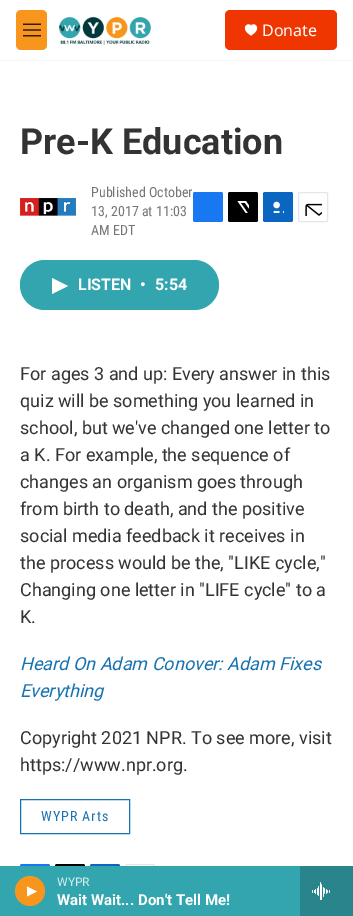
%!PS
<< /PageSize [353 916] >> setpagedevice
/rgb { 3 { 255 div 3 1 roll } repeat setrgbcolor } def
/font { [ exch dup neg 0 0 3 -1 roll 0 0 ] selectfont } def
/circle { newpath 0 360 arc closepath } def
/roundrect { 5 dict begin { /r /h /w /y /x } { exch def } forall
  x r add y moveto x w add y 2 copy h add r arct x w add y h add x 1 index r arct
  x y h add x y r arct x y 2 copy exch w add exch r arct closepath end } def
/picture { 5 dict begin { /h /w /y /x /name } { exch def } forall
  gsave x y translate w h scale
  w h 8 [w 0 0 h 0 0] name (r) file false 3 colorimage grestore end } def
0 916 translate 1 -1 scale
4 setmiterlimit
255 255 255 rgb
0 0 353 916 rectfill
245 245 245 rgb
0 60 353 1 rectfill
248 149 29 rgb
16 10 31 40 5 roundrect fill
(img/1.rgb) 23 23 18 14 picture
(img/2.rgb) 59 16 92 29 picture
239 54 0 rgb
225 10 112 40 5 roundrect fill
255 255 255 rgb
251 26 moveto 249 21 238.5 28 251 35.5 curveto 263.5 28 253 21 251 26 curveto closepath fill
23 120 242 rgb
20 864 30 30 2 roundrect fill
0 0 0 rgb
55 864 30 30 2 roundrect fill
10 102 193 rgb
90 864 30 30 2 roundrect fill
230 230 230 rgb
125.5 864.5 29 29 1.5 roundrect stroke
51 165 174 rgb
0 866 300 50 rectfill
248 149 29 rgb
30 891 15 circle fill
255 255 255 rgb
27 886.5 moveto 37 891.5 lineto 27 896.5 lineto closepath fill
41 132 139 rgb
300 866 53 50 rectfill
(img/3.rgb) 312 882 18 18 picture
(img/4.rgb) 20 198 56 18 picture
23 120 242 rgb
193 192 30 30 2 roundrect fill
0 0 0 rgb
228 192 30 30 2 roundrect fill
(img/5.rgb) 237 201 12 12 picture
10 102 193 rgb
263 192 30 30 2 roundrect fill
(img/6.rgb) 273 201 11 12 picture
230 230 230 rgb
298.5 192.5 29 29 1.5 roundrect stroke
(img/7.rgb) 305 203 17 13 picture
51 165 174 rgb
20 260 199 50 25 roundrect fill
255 255 255 rgb
52 278 moveto 68 286 lineto 52 294 lineto closepath fill
23 114 176 rgb
20.5 799.5 109 34 rectstroke
/NotoSans-Regular 16 font
255 255 255 rgb
262 36 moveto (Donate) show
/Roboto-Regular 12 font
214 237 239 rgb
57 886 moveto (WYPR) show
/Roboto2-Bold 15 font
255 255 255 rgb
57 905 moveto (Wait Wait... Don't Tell Me!) show
/Roboto-Bold 36 font
51 51 51 rgb
20 154 moveto (Pre-K Education) show
/RobotoCondensed-Regular 14 font
118 118 118 rgb
[
  [(Published October) 91 197]
  [(13, 2017 at 11:03) 91 216]
  [(AM EDT) 91 235]
] { aload pop moveto show } forall
/Roboto2-Bold 16 font
255 255 255 rgb
[
  [(LISTEN) 78 290]
  [(•) 140 290]
  [(5:54) 155 290]
] { aload pop moveto show } forall
/Roboto-Regular 18 font
51 51 51 rgb
[
  [(For ages 3 and up: Every answer in this) 20 380]
  [(quiz will be something you learned in) 20 407]
  [(school, but we've changed one letter to) 20 434]
  [(a K. For example, the sequence of) 20 461]
  [(changes an organism goes through) 20 488]
  [(from birth to death, and the positive) 20 515]
  [(social media feedback it receives in) 20 542]
  [(the process would be the, "LIKE cycle,") 20 569]
  [(Changing one letter in "LIFE cycle" to a) 20 596]
  [(K.) 20 623]
] { aload pop moveto show } forall
/Roboto-Italic 18 font
23 114 176 rgb
20 670 moveto (Heard On Adam Conover: Adam Fixes) show
20 697 moveto (Everything) show
/Roboto-Regular 18 font
51 51 51 rgb
20 744 moveto (Copyright 2021 NPR. To see more, visit) show
20 771 moveto (https://www.npr.org.) show
/RobotoCondensed-Regular 14 font
23 114 176 rgb
41 821 moveto 1 0 (WYPR Arts) ashow
showpage
